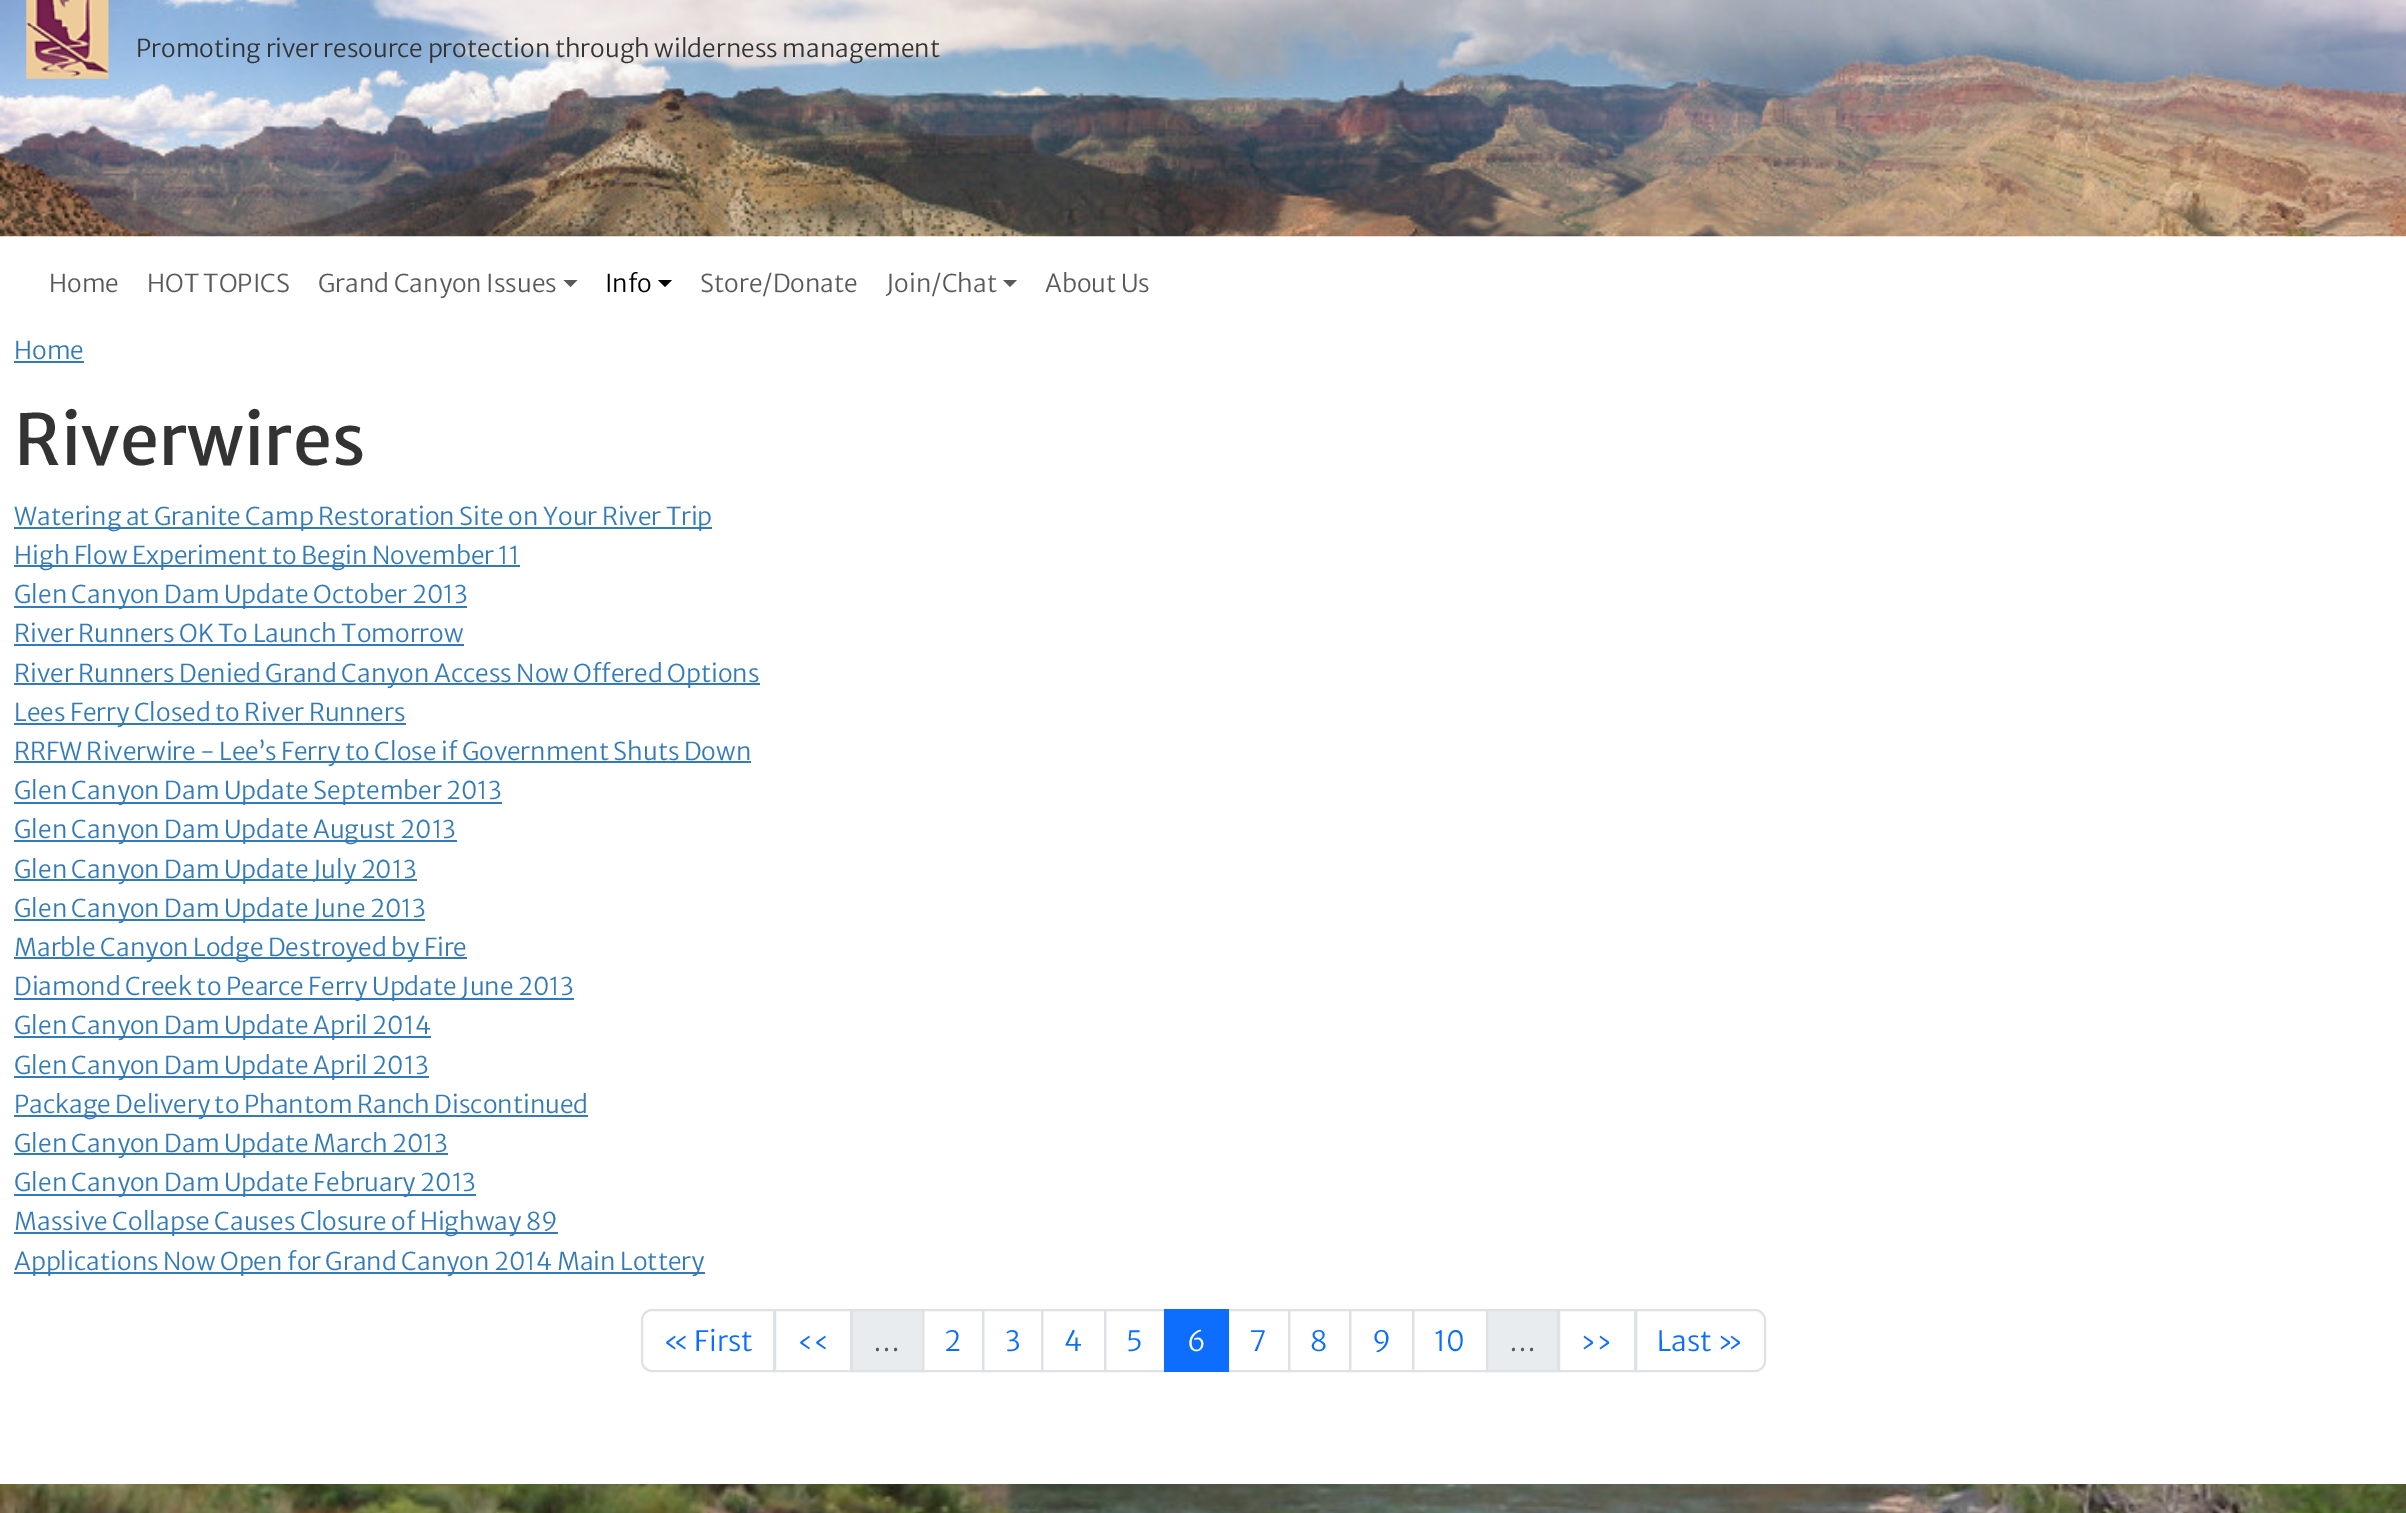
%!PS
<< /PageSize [2406 1513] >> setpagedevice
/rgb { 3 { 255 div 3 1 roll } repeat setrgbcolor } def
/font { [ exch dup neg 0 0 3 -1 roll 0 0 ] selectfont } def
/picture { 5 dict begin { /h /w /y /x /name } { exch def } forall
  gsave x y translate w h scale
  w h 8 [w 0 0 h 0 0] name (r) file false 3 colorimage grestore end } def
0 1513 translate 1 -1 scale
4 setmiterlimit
255 255 255 rgb
0 0 2406 1513 rectfill
(img/1.rgb) 0 0 2406 237 picture
(img/2.rgb) 26 0 83 79 picture
89 89 89 rgb
563.5 280 moveto 577.5 280 lineto 570.5 287 lineto closepath fill
0 0 0 rgb
658 280 moveto 672 280 lineto 665 287 lineto closepath fill
89 89 89 rgb
1003 280 moveto 1017 280 lineto 1010 287 lineto closepath fill
[
  [14 361 70 2 51 122 183]
  [14 527 698 2 51 122 183]
  [14 565 506 2 51 122 183]
  [14 606 453 2 51 122 183]
  [14 644 450 2 51 122 183]
  [14 683 746 2 51 122 183]
  [14 723 392 2 51 122 183]
  [14 761 737 2 51 122 183]
  [14 802 488 2 51 122 183]
  [14 840 443 2 51 122 183]
  [14 879 403 2 51 122 183]
  [14 919 411 2 51 122 183]
  [14 957 453 2 51 122 183]
  [14 998 560 2 51 122 183]
  [14 1036 417 2 51 122 183]
  [14 1076 415 2 51 122 183]
  [14 1115 574 2 51 122 183]
  [14 1153 434 2 51 122 183]
  [14 1194 462 2 51 122 183]
  [14 1232 544 2 51 122 183]
  [14 1272 691 2 51 122 183]
] { aload pop rgb rectfill } forall
222 226 230 rgb
2 setlinewidth
652 1310 moveto 774 1310 lineto 774 1371 lineto 652 1371 lineto 646.5 1371 642 1366.5 642 1361 curveto 642 1320 lineto 642 1314.5 646.5 1310 652 1310 curveto closepath stroke
775 1310 76 61 rectstroke
233 236 239 rgb
852 1310 moveto 923 1310 lineto 923 1371 lineto 852 1371 lineto closepath gsave fill grestore
222 226 230 rgb
stroke
923 1310 60 61 rectstroke
983 1310 59 61 rectstroke
1042 1310 63 61 rectstroke
1105 1310 60 61 rectstroke
1228 1310 61 61 rectstroke
13 110 253 rgb
1164 1309 65 63 rectfill
222 226 230 rgb
1289 1310 61 61 rectstroke
1350 1310 63 61 rectstroke
1413 1310 74 61 rectstroke
233 236 239 rgb
1487 1310 moveto 1558 1310 lineto 1558 1371 lineto 1487 1371 lineto closepath gsave fill grestore
222 226 230 rgb
stroke
1559 1310 76 61 rectstroke
255 255 255 rgb
1636 1310 moveto 1755 1310 lineto 1760.5 1310 1765 1314.5 1765 1320 curveto 1765 1361 lineto 1765 1366.5 1760.5 1371 1755 1371 curveto 1636 1371 lineto closepath gsave fill grestore
222 226 230 rgb
stroke
(img/3.rgb) 0 1484 2406 29 picture
/MerriweatherSans-Light 24.5 font
51 51 51 rgb
136 57 moveto (Promoting river resource protection through wilderness management) show
89 89 89 rgb
[
  [(Home) 49 292]
  [(HOT TOPICS) 147 292]
  [(Grand Canyon Issues) 318 292]
] { aload pop moveto show } forall
0 0 0 rgb
605 292 moveto (Info) show
89 89 89 rgb
[
  [(Store/Donate) 700 292]
  [(Join/Chat) 886 292]
  [(About Us) 1045 292]
] { aload pop moveto show } forall
51 122 183 rgb
14 359 moveto (Home) show
/MerriweatherSans-Regular 70 font
51 51 51 rgb
14 465 moveto (Riverwires) show
/MerriweatherSans-Light 24.5 font
51 122 183 rgb
[
  [(Watering at Granite Camp Restoration Site on Your River Trip) 14 525]
  [(High Flow Experiment to Begin November 11) 14 564]
  [(Glen Canyon Dam Update October 2013) 14 603]
  [(River Runners OK To Launch Tomorrow) 14 642]
  [(River Runners Denied Grand Canyon Access Now Offered Options) 14 682]
  [(Lees Ferry Closed to River Runners) 14 721]
  [(RRFW Riverwire - Lee’s Ferry to Close if Government Shuts Down) 14 760]
  [(Glen Canyon Dam Update September 2013) 14 799]
  [(Glen Canyon Dam Update August 2013) 14 838]
  [(Glen Canyon Dam Update July 2013) 14 878]
  [(Glen Canyon Dam Update June 2013) 14 917]
  [(Marble Canyon Lodge Destroyed by Fire) 14 956]
  [(Diamond Creek to Pearce Ferry Update June 2013) 14 995]
  [(Glen Canyon Dam Update April 2014) 14 1034]
  [(Glen Canyon Dam Update April 2013) 14 1074]
  [(Package Delivery to Phantom Ranch Discontinued) 14 1113]
  [(Glen Canyon Dam Update March 2013) 14 1152]
  [(Glen Canyon Dam Update February 2013) 14 1191]
  [(Massive Collapse Causes Closure of Highway 89) 14 1230]
  [(Applications Now Open for Grand Canyon 2014 Main Lottery) 14 1270]
] { aload pop moveto show } forall
/MerriweatherSans-Light 28 font
13 110 253 rgb
663 1351 moveto (« First) show
797 1351 moveto (‹‹) show
83 87 91 rgb
873 1351 moveto (…) show
13 110 253 rgb
[
  [(2) 944 1351]
  [(3) 1005 1351]
  [(4) 1064 1351]
  [(5) 1126 1351]
] { aload pop moveto show } forall
255 255 255 rgb
1187 1351 moveto (6) show
13 110 253 rgb
[
  [(7) 1249 1351]
  [(8) 1310 1351]
  [(9) 1372 1351]
  [(10) 1434 1351]
] { aload pop moveto show } forall
83 87 91 rgb
1509 1351 moveto (…) show
13 110 253 rgb
1580 1351 moveto (››) show
1657 1351 moveto (Last ») show
showpage
